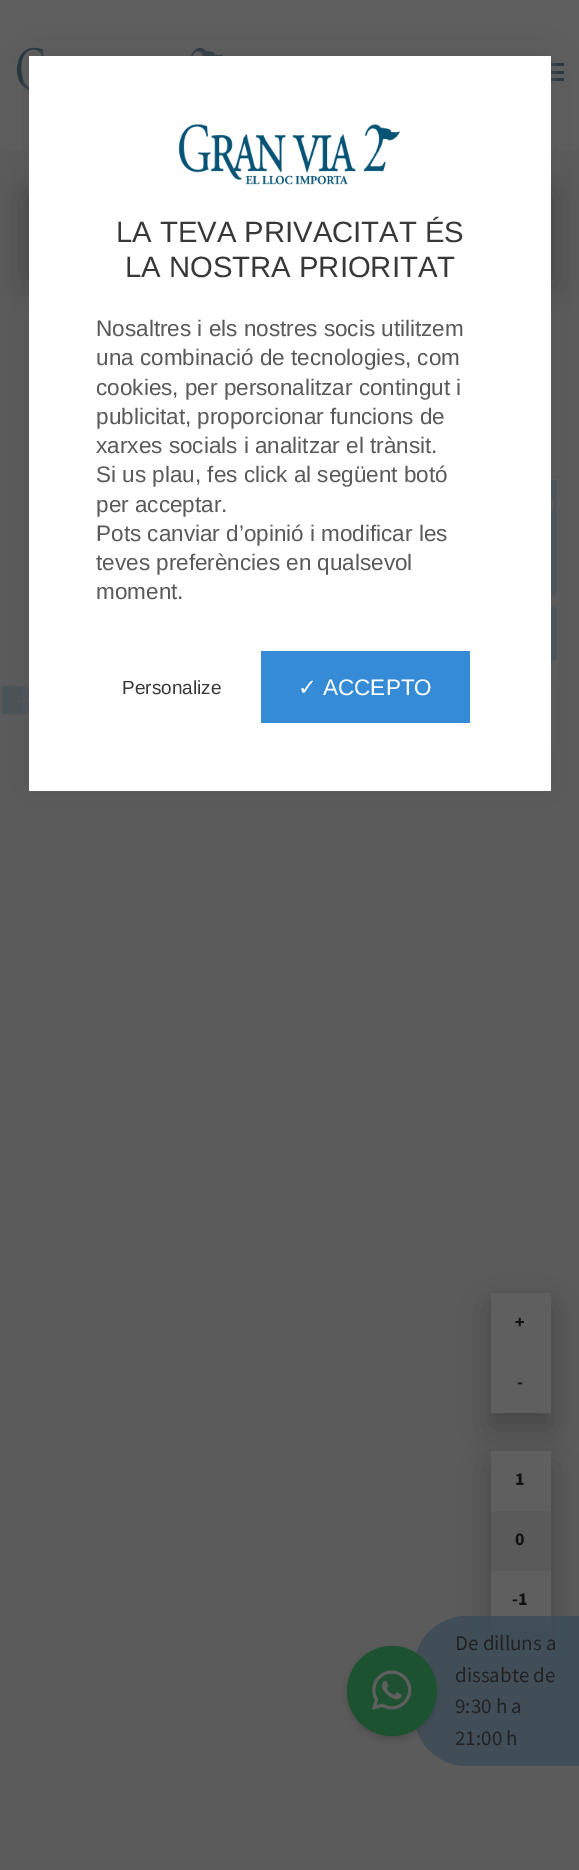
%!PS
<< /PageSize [579 1870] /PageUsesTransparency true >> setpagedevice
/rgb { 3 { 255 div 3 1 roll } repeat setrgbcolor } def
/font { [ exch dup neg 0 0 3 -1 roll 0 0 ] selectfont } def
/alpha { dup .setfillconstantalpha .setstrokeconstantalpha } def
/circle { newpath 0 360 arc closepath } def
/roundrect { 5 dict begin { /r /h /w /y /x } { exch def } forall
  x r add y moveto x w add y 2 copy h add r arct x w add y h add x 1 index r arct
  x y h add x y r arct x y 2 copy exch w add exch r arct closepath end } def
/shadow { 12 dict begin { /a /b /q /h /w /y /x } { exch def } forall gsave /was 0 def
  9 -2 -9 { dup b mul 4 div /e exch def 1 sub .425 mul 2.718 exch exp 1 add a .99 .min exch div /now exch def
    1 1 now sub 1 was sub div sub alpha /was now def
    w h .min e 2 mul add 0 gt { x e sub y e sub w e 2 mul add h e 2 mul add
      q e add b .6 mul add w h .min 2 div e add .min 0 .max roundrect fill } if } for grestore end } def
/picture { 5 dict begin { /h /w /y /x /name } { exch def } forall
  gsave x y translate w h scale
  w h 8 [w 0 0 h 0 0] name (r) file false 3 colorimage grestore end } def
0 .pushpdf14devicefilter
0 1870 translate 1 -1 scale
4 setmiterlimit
91 91 91 rgb
0 0 579 1870 rectfill
95 95 95 rgb
0 0 579 150 rectfill
(img/1.rgb) 16 47 208 44 picture
[
  [551 71 13 3 25 43 59]
  [551 63 13 3 25 43 59]
  [551 78 13 3 25 43 59]
] { aload pop rgb rectfill } forall
(img/3.rgb) 0 477 559 270 picture
87 87 87 rgb
29 56 522 735 0 26 1 shadow
59 59 59 rgb
29 195 522 87 0 15 0.65 shadow
255 255 255 rgb
29 56 522 735 rectfill
(img/2.rgb) 178 124 222 61 picture
53 139 214 rgb
261 651 209 72 rectfill
59 59 59 rgb
491 1308 60 120 0 15 0.65 shadow
95 95 95 rgb
491 1293 60 120 rectfill
59 59 59 rgb
491 1466 60 180 0 15 0.65 shadow
95 95 95 rgb
491 1451 60 180 rectfill
90 90 90 rgb
491 1511 60 60 rectfill
0.9 alpha
62 77 88 rgb
467 1616 moveto 579 1616 lineto 579 1766 lineto 467 1766 lineto 437.5 1766 414 1742.5 414 1713 curveto 414 1669 lineto 414 1639.5 437.5 1616 467 1616 curveto closepath fill
1 alpha
18 18 18 rgb
347 1649 90 90 45 3 0.2 shadow
29 82 49 rgb
392 1691 45 circle fill
(img/4.rgb) 372 1670 40 40 picture
/LiberationSans-Regular 29.25 font
56 56 56 rgb
116 242 moveto (LA TEVA PRIVACITAT ÉS) show
125 277 moveto (LA NOSTRA PRIORITAT) show
/LiberationSans-Regular 22.5 font
90 90 90 rgb
[
  [(Nosaltres i els nostres socis utilitzem) 96 336]
  [(una combinació de tecnologies, com) 96 365]
  [(cookies, per personalitzar contingut i) 96 395]
  [(publicitat, proporcionar funcions de) 96 424]
  [(xarxes socials i analitzar el trànsit.) 96 453]
  [(Si us plau, fes click al següent botó) 96 482]
  [(per acceptar.) 96 512]
  [(Pots canviar d’opinió i modificar les) 96 541]
  [(teves preferències en qualsevol) 96 570]
  [(moment.) 96 599]
] { aload pop moveto show } forall
/LiberationSans-Regular 19 font
56 56 56 rgb
122 694 moveto (Personalize) show
/DejaVuSans-Regular 22.5 font
255 255 255 rgb
298 695 moveto (✓) show
/LiberationSans-Regular 22.5 font
323 695 moveto (ACCEPTO) show
/SourceSansPro-Bold 18 font
18 18 18 rgb
[
  [(+) 515 1328]
  [(-) 517 1388]
  [(1) 515 1485]
  [(0) 515 1545]
  [(-1) 512 1605]
] { aload pop moveto show } forall
/SourceSansPro-Regular 21 font
34 34 34 rgb
[
  [(De dilluns a) 455 1650]
  [(dissabte de) 455 1682]
  [(9:30 h a) 455 1713]
  [(21:00 h) 455 1745]
] { aload pop moveto show } forall
.poppdf14devicefilter showpage
